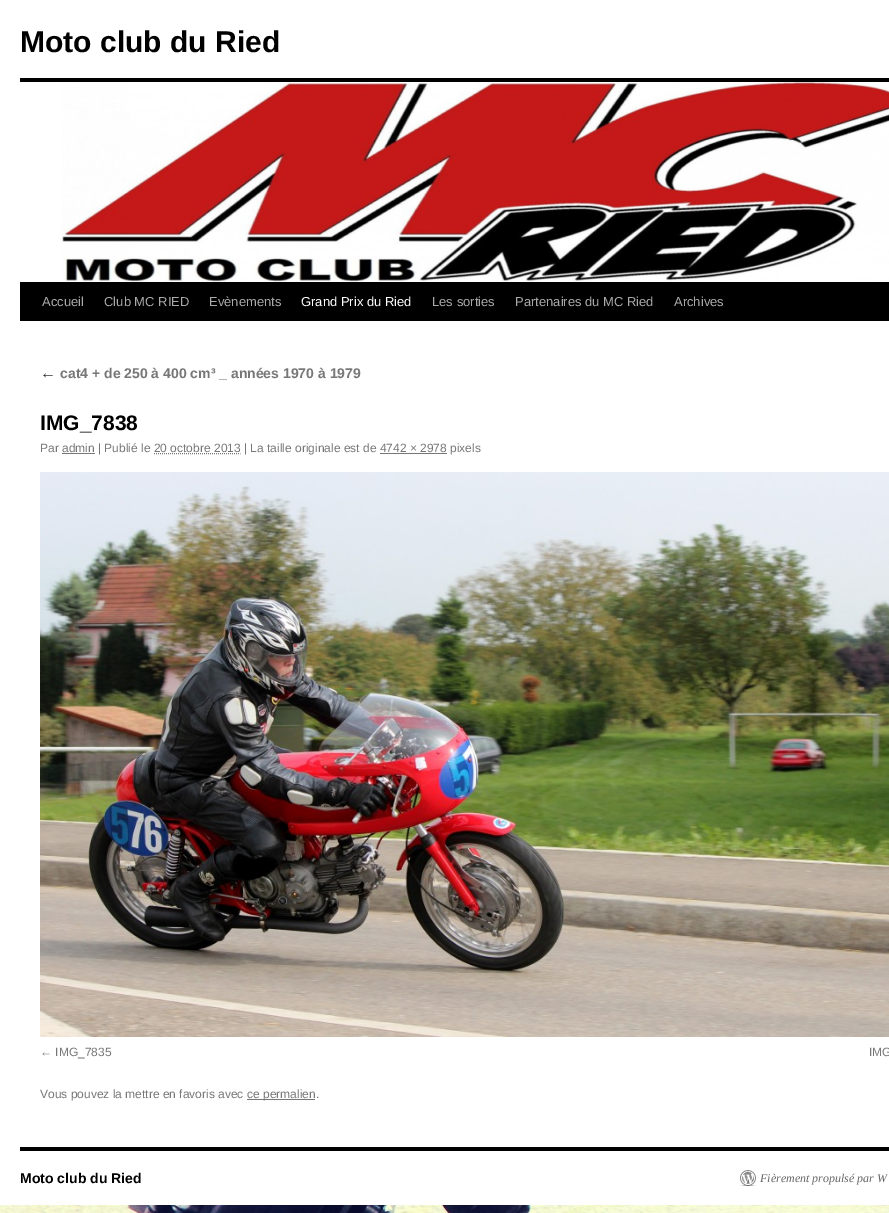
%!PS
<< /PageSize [889 1213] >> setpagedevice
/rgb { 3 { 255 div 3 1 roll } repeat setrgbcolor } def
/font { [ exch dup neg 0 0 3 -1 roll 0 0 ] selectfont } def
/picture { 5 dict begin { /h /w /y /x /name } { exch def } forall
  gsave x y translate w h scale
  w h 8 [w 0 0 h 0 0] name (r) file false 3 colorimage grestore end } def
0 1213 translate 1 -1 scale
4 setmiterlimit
255 255 255 rgb
0 0 889 1213 rectfill
(img/1.rgb) 0 1205 889 8 picture
0 0 0 rgb
20 78 869 4 rectfill
20 282 869 39 rectfill
(img/2.rgb) 61 82 828 200 picture
119 119 119 rgb
62 453 33 1 rectfill
[1 1] 0 setdash
154 453.5 moveto 240.5 453.5 lineto stroke
380 453 67 1 rectfill
(img/3.rgb) 40 472 849 565 picture
247 1099 68 1 rectfill
0 0 0 rgb
20 1147 869 4 rectfill
(img/4.rgb) 740 1170 16 16 picture
/LiberationSans-Bold 30 font
20 52 moveto (Moto club du Ried) show
/LiberationSans-Regular 13 font
170 170 170 rgb
[
  [(Accueil) 42 306]
  [(Club MC RIED) 104 306]
  [(Evènements) 209 306]
] { aload pop moveto show } forall
255 255 255 rgb
301 306 moveto (Grand Prix du Ried) show
170 170 170 rgb
[
  [(Les sorties) 432 306]
  [(Partenaires du MC Ried) 515 306]
  [(Archives) 674 306]
] { aload pop moveto show } forall
/LiberationSerif-Italic 16 font
51 51 51 rgb
40 378 moveto (←) show
/LiberationSans-Bold 14 font
119 119 119 rgb
60 378 moveto (cat4 + de 250 à 400 cm³ _ années 1970 à 1979) show
/LiberationSans-Bold 21 font
0 0 0 rgb
40 430 moveto (IMG_7838) show
/LiberationSans-Regular 12 font
119 119 119 rgb
[
  [(Par admin | Publié le 20 octobre 2013 | La taille originale est de 4742 × 2978 pixels) 40 452]
  [(← IMG_7835) 40 1056]
  [(IMG) 869 1056]
  [(Vous pouvez la mettre en favoris avec) 40 1098]
  [(ce permalien.) 247 1098]
] { aload pop moveto show } forall
/LiberationSans-Bold 14 font
0 0 0 rgb
20 1183 moveto (Moto club du Ried) show
/LiberationSerif-Italic 12 font
102 102 102 rgb
760 1182 moveto (Fièrement propulsé par W) show
showpage
